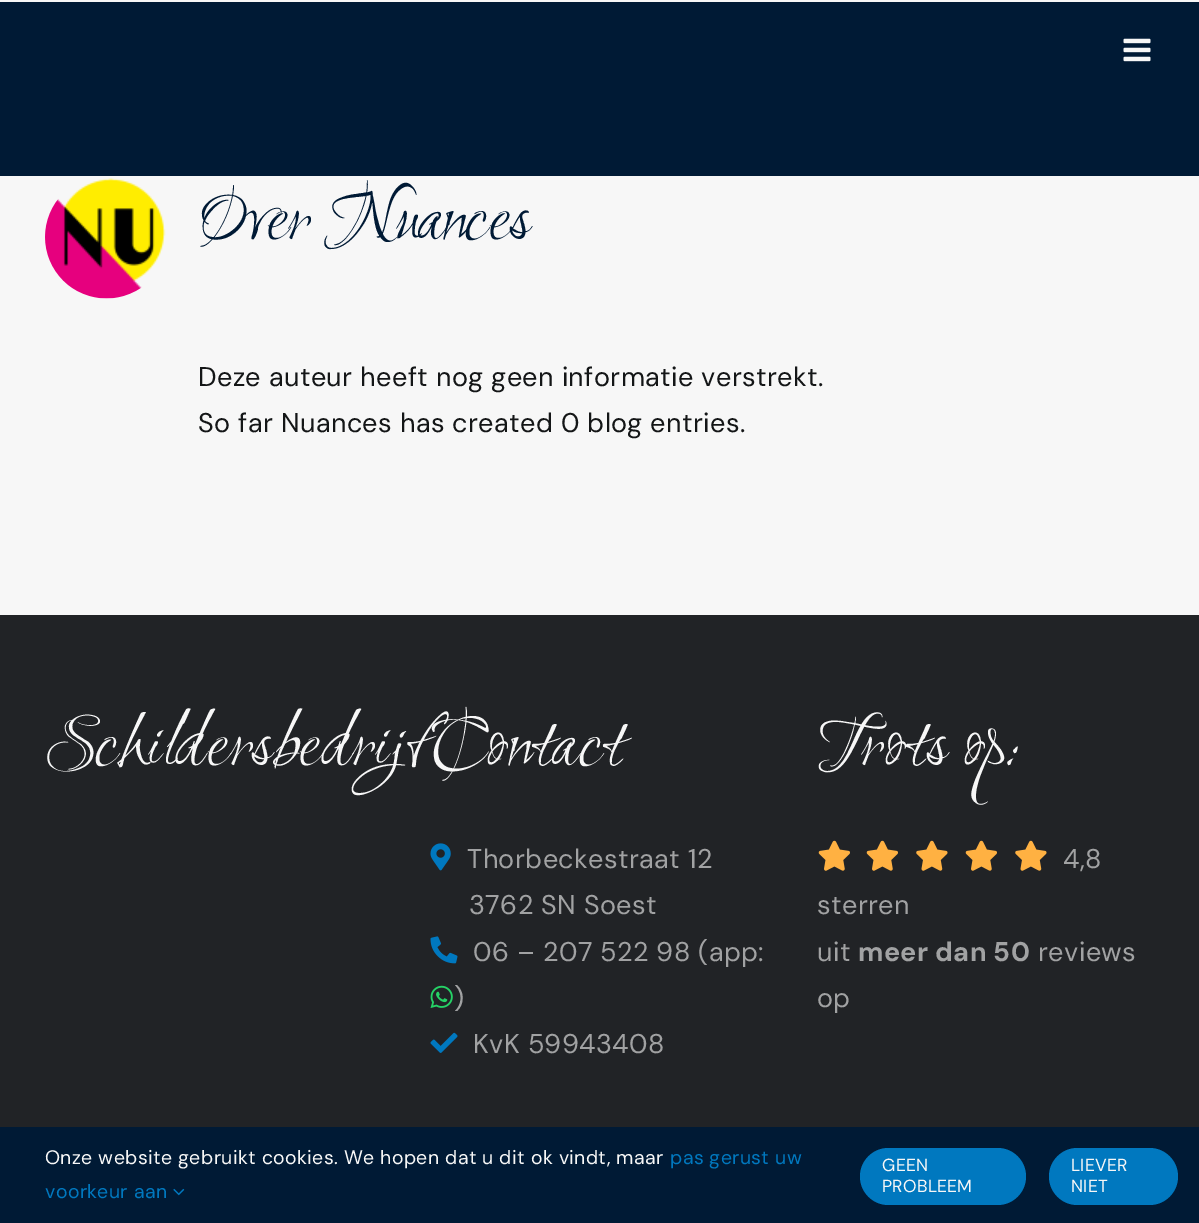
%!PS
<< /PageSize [1199 1223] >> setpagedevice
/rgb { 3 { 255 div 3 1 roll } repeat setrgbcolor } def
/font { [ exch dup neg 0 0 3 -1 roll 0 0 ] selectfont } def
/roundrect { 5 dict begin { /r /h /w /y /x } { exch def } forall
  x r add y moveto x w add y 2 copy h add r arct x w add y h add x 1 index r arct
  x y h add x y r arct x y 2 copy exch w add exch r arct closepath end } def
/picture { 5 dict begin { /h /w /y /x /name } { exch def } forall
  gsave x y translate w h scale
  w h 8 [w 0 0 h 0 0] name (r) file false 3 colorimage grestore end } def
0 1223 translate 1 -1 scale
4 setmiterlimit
247 247 247 rgb
0 0 1199 1223 rectfill
0 26 53 rgb
0 2 1199 174 rectfill
(img/1.rgb) 1123 38 28 24 picture
(img/2.rgb) 45 178 121 121 picture
33 35 38 rgb
0 615 1199 512 rectfill
(img/3.rgb) 430 843 21 28 picture
(img/4.rgb) 430 936 28 28 picture
(img/5.rgb) 430 985 23 23 picture
(img/6.rgb) 430 1032 28 21 picture
(img/7.rgb) 818 840 32 31 picture
(img/7.rgb) 866 840 32 31 picture
(img/8.rgb) 916 840 32 31 picture
(img/7.rgb) 965 840 32 31 picture
(img/8.rgb) 1015 840 32 31 picture
0 26 53 rgb
0 1127 1199 96 rectfill
(img/9.rgb) 173 1188 12 8 picture
0 120 191 rgb
860 1148 166 57 28.5 roundrect fill
1049 1148 129 57 28.5 roundrect fill
/Ruthie-Regular 81 font
0 26 53 rgb
198 238 moveto -1.25 0 (Over Nuances) ashow
/DMSans-Regular 27 font
20 22 23 rgb
198 386 moveto 0.4 0 (Deze auteur heeft nog geen informatie verstrekt.) ashow
198 432 moveto 0.4 0 (So far Nuances has created 0 blog entries.) ashow
/Ruthie-Regular 81 font
247 247 247 rgb
45 764 moveto (Schildersbedrijf) show
431 764 moveto (Contact) show
/DMSans-Regular 27 font
161 162 163 rgb
467 868 moveto 0.4 0 (Thorbeckestraat 12) ashow
469 914 moveto 0.4 0 (3762 SN Soest) ashow
473 961 moveto 0.4 0 (06 – 207 522 98 \(app:) ashow
454 1007 moveto 0.4 0 (\)) ashow
473 1053 moveto 0.4 0 (KvK 59943408) ashow
/Ruthie-Regular 81 font
247 247 247 rgb
817 764 moveto (Trots op:) show
/DMSans-Regular 27 font
161 162 163 rgb
1063 868 moveto 0.4 0 (4,8) ashow
817 914 moveto 0.4 0 (sterren) ashow
817 961 moveto 0.4 0 (uit) ashow
/DMSans-Bold 27 font
858 961 moveto 0.4 0 (meer dan 50) ashow
/DMSans-Regular 27 font
1038 961 moveto 0.4 0 (reviews) ashow
817 1007 moveto 0.4 0 (op) ashow
/DMSans-Regular 19.5 font
247 247 247 rgb
45 1164 moveto 0.4 0 (Onze website gebruikt cookies. We hopen dat u dit ok vindt, maar) ashow
0 120 191 rgb
670 1164 moveto 0.4 0 (pas gerust uw) ashow
45 1198 moveto 0.4 0 (voorkeur aan) ashow
/DMSans-Regular 17.5 font
247 247 247 rgb
882 1171 moveto 0.25 0 (GEEN) ashow
882 1192 moveto 0.25 0 (PROBLEEM) ashow
1071 1171 moveto 0.25 0 (LIEVER) ashow
1071 1192 moveto 0.25 0 (NIET) ashow
showpage
